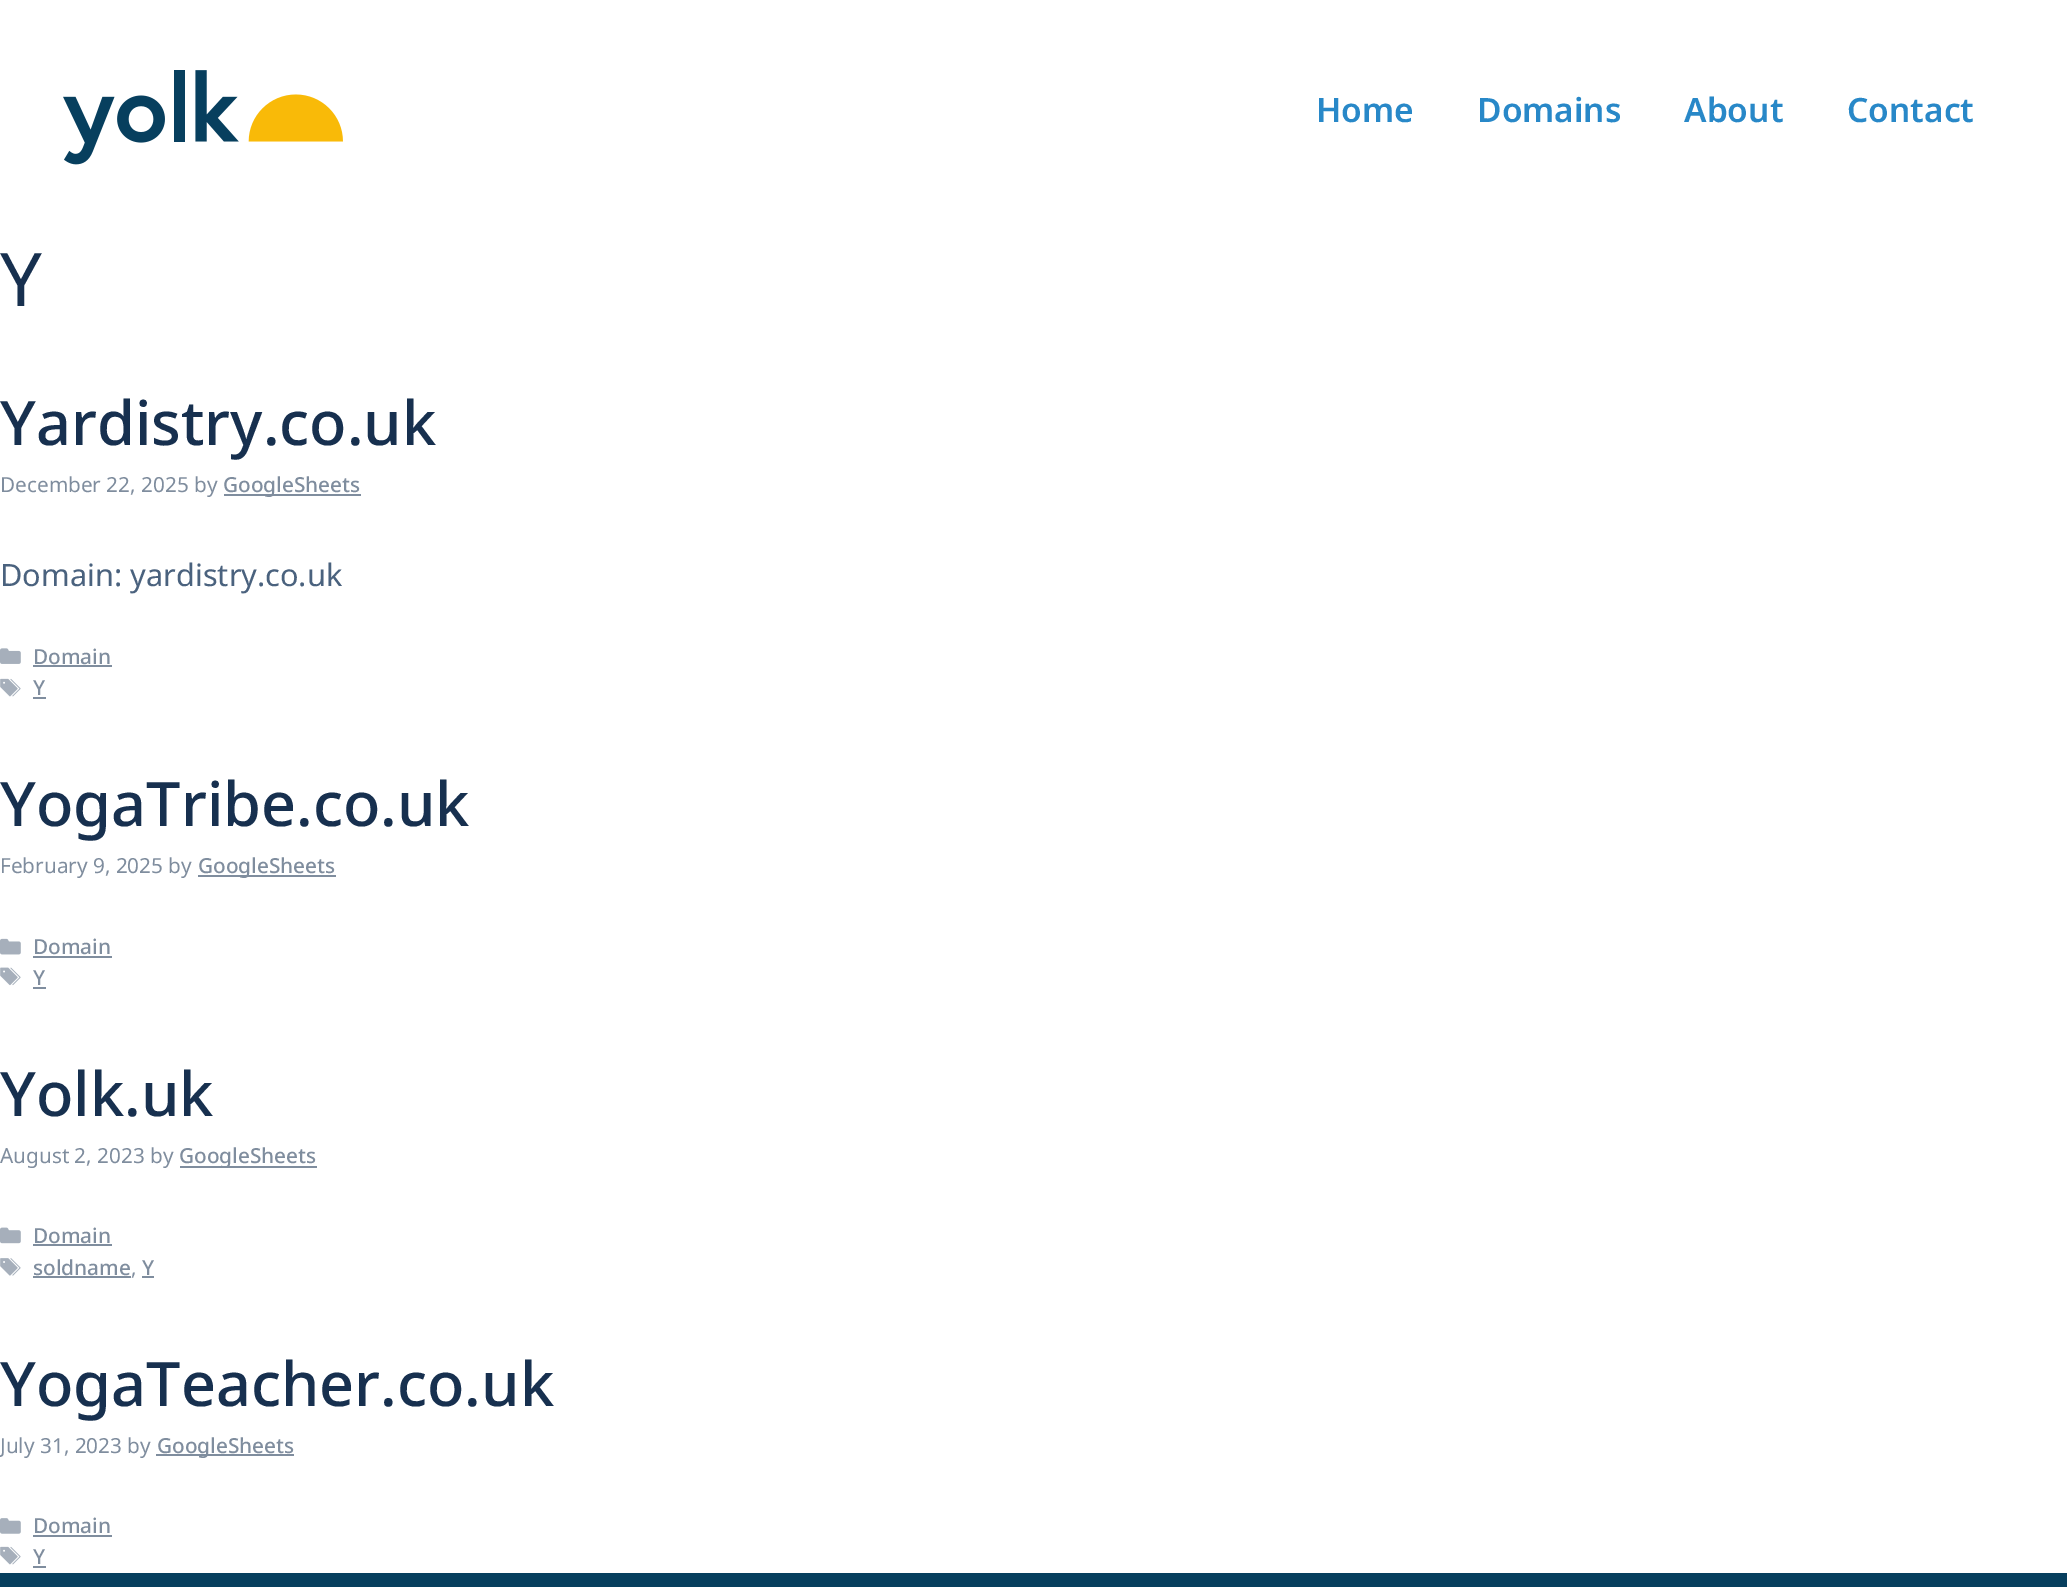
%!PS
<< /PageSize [2067 1587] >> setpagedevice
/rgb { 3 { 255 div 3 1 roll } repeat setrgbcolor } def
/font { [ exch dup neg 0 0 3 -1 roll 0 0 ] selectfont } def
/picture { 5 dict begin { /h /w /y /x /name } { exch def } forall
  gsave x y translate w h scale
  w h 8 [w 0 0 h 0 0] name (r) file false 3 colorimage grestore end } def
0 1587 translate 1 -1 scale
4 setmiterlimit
255 255 255 rgb
0 0 2067 1587 rectfill
(img/1.rgb) 63 70 280 95 picture
127 141 158 rgb
224 494 137 2 rectfill
(img/2.rgb) 0 648 21 16 picture
33 665 79 2 rectfill
(img/3.rgb) 0 678 21 19 picture
33 697 13 2 rectfill
198 875 138 2 rectfill
(img/4.rgb) 0 938 21 17 picture
33 956 79 2 rectfill
(img/5.rgb) 0 967 21 19 picture
33 987 13 2 rectfill
180 1166 137 2 rectfill
(img/6.rgb) 0 1227 21 17 picture
33 1244 79 2 rectfill
(img/7.rgb) 0 1258 21 18 picture
[
  [33 1276 98 2 127 141 158]
  [142 1276 12 2 127 141 158]
  [156 1454 138 2 127 141 158]
] { aload pop rgb rectfill } forall
(img/8.rgb) 0 1518 21 16 picture
33 1535 79 2 rectfill
(img/3.rgb) 0 1546 21 19 picture
33 1566 13 2 rectfill
7 63 94 rgb
0 1573 2067 14 rectfill
/NotoSans-SemiBold 33.5 font
40 136 200 rgb
[
  [(Home) 1316 122]
  [(Domains) 1477 122]
  [(About) 1684 122]
  [(Contact) 1847 122]
] { aload pop moveto show } forall
/NotoSans-Regular 74 font
23 48 79 rgb
0 306 moveto (Y) show
/NotoSans-Medium 61.25 font
0 445 moveto (Yardistry.co.uk) show
/NotoSans-Regular 20.75 font
127 141 158 rgb
0 492 moveto (December 22, 2025 by) show
/NotoSans-Medium 20.75 font
223 492 moveto (GoogleSheets) show
/NotoSans-Regular 30.75 font
74 98 126 rgb
0 586 moveto (Domain: yardistry.co.uk) show
/NotoSans-Medium 20.75 font
127 141 158 rgb
33 664 moveto (Domain) show
33 695 moveto (Y) show
/NotoSans-Medium 61.25 font
23 48 79 rgb
0 826 moveto (YogaTribe.co.uk) show
/NotoSans-Regular 20.75 font
127 141 158 rgb
0 873 moveto (February 9, 2025 by) show
/NotoSans-Medium 20.75 font
[
  [(GoogleSheets) 198 873]
  [(Domain) 33 954]
  [(Y) 33 985]
] { aload pop moveto show } forall
/NotoSans-Medium 61.25 font
23 48 79 rgb
0 1116 moveto (Yolk.uk) show
/NotoSans-Regular 20.75 font
127 141 158 rgb
0 1163 moveto (August 2, 2023 by) show
/NotoSans-Medium 20.75 font
[
  [(GoogleSheets) 179 1163]
  [(Domain) 33 1243]
  [(soldname) 33 1275]
] { aload pop moveto show } forall
/NotoSans-Regular 20.75 font
131 1275 moveto (,) show
/NotoSans-Medium 20.75 font
142 1275 moveto (Y) show
/NotoSans-Medium 61.25 font
23 48 79 rgb
0 1406 moveto (YogaTeacher.co.uk) show
/NotoSans-Regular 20.75 font
127 141 158 rgb
0 1453 moveto (July 31, 2023 by) show
/NotoSans-Medium 20.75 font
[
  [(GoogleSheets) 157 1453]
  [(Domain) 33 1533]
  [(Y) 33 1564]
] { aload pop moveto show } forall
showpage
